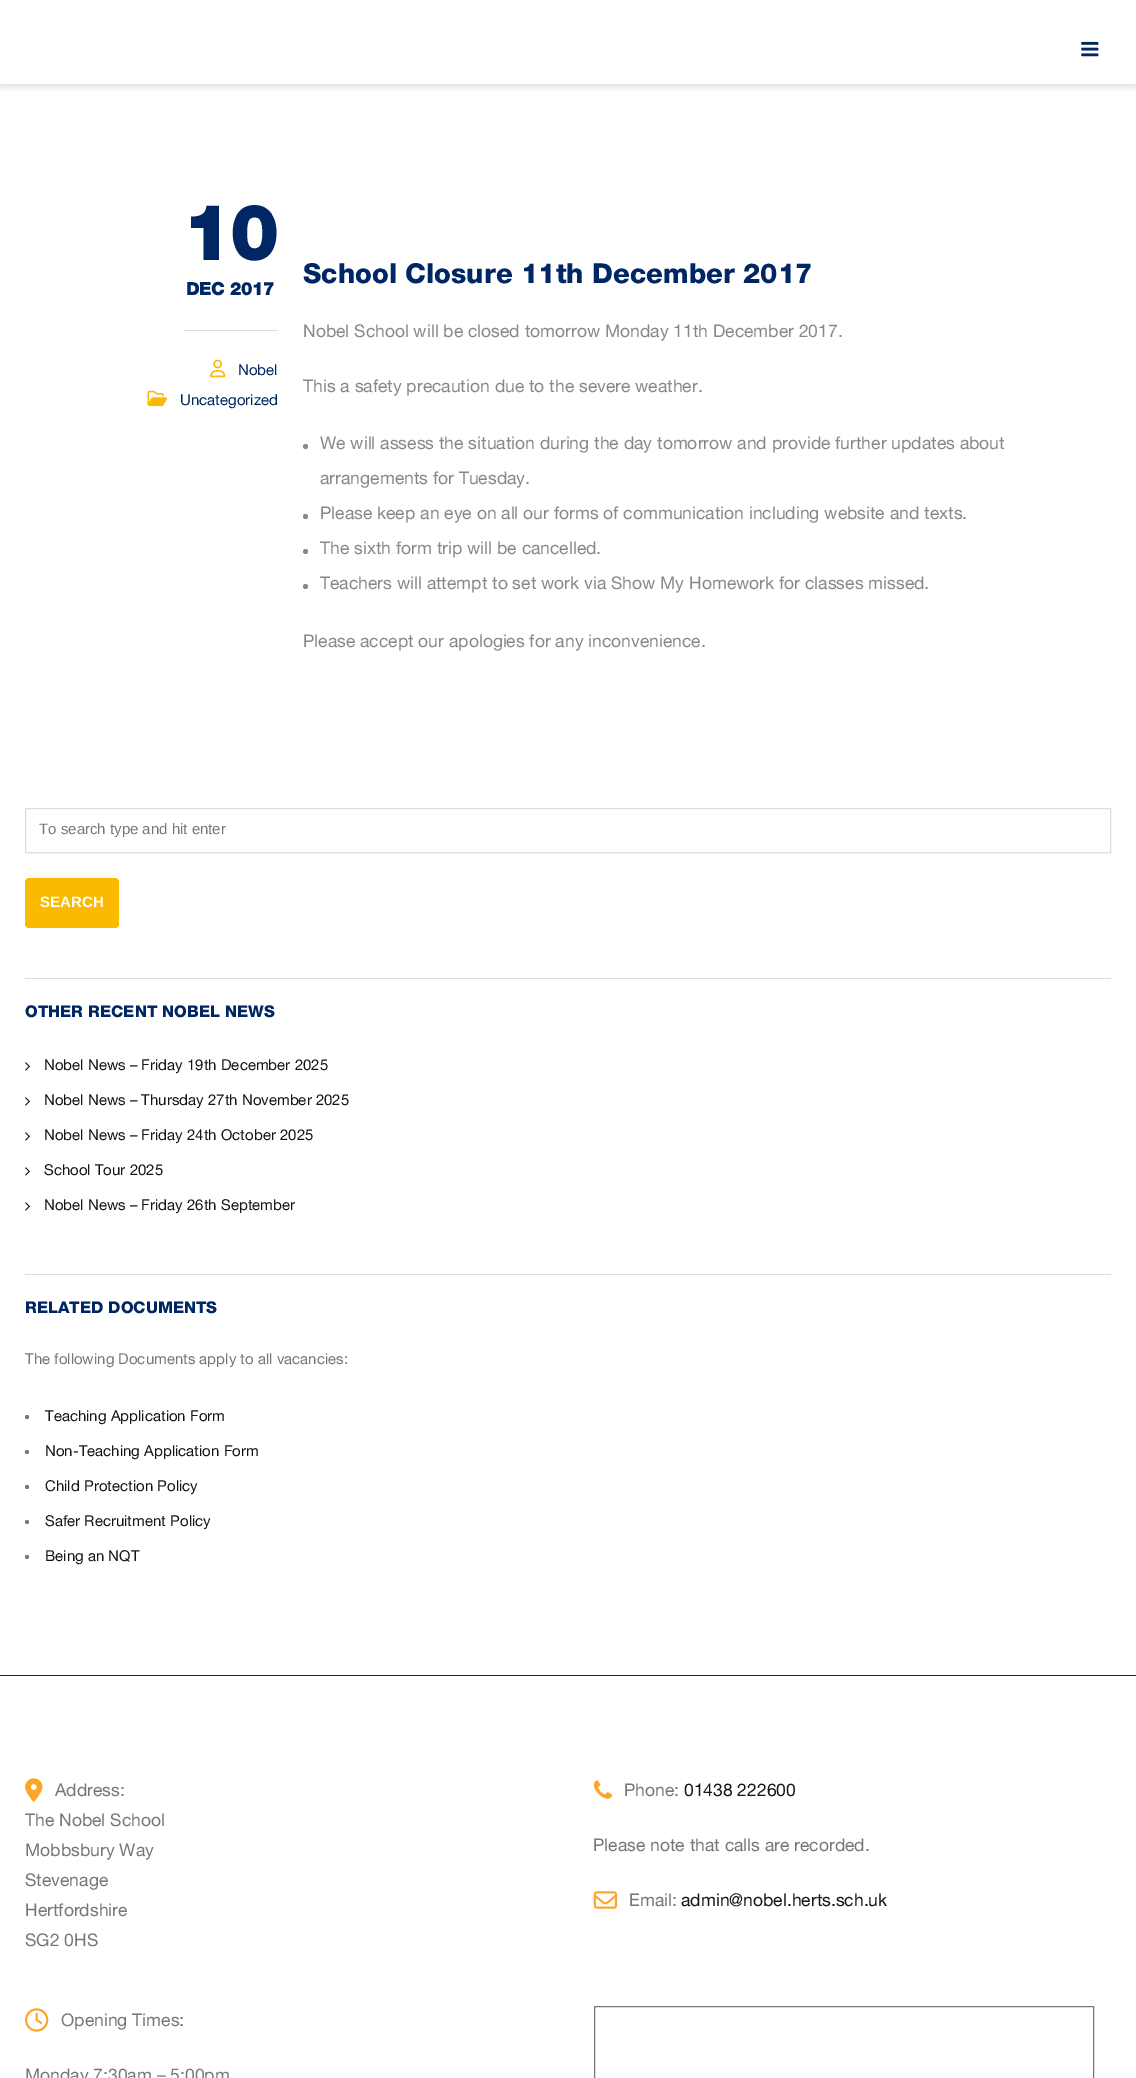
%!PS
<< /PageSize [1136 2078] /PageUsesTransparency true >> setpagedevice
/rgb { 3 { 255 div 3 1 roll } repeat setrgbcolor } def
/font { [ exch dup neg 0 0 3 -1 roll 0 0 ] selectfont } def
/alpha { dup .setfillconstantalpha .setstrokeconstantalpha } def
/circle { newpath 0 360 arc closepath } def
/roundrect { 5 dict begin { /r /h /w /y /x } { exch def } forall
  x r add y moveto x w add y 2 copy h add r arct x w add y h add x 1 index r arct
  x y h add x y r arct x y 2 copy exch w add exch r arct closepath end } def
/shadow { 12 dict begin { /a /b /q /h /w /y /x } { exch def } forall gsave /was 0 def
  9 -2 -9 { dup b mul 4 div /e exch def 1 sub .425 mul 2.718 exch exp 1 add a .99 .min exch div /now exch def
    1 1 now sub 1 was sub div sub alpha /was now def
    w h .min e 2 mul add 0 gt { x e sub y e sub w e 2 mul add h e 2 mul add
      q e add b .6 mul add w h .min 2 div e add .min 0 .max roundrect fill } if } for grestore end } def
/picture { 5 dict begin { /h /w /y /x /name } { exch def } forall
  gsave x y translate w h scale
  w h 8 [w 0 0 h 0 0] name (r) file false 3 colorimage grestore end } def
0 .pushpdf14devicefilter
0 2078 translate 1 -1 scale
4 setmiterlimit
255 255 255 rgb
0 0 1136 2078 rectfill
0 0 0 rgb
0 4 1136 84 0 2 0.1 shadow
255 255 255 rgb
0 1 1136 83 rectfill
(img/1.rgb) 1081 41 18 16 picture
221 221 221 rgb
184 330 94 1 rectfill
(img/2.rgb) 210 359 16 19 picture
(img/3.rgb) 147 390 21 17 picture
136 136 136 rgb
305.5 446.5 2.5 circle fill
305.5 516.5 2.5 circle fill
305.5 551.5 2.5 circle fill
305.5 586.5 2.5 circle fill
221 221 221 rgb
25.5 808.5 1085 44 rectstroke
251 186 0 rgb
25 878 94 50 4 roundrect fill
221 221 221 rgb
25 978 1086 1 rectfill
(img/4.rgb) 25 1062 5 9 picture
(img/4.rgb) 25 1097 5 9 picture
(img/4.rgb) 25 1132 5 9 picture
(img/4.rgb) 25 1167 5 9 picture
(img/4.rgb) 25 1202 5 9 picture
25 1274 1086 1 rectfill
119 119 119 rgb
27 1417 2 circle fill
27 1452 2 circle fill
27 1487 2 circle fill
27 1522 2 circle fill
27 1557 2 circle fill
0 38 100 rgb
0 1675 1136 1 rectfill
(img/5.rgb) 25 1778 18 24 picture
(img/6.rgb) 593 1780 20 19 picture
(img/7.rgb) 593 1891 25 18 picture
(img/8.rgb) 25 2008 24 24 picture
119 119 119 rgb
594.5 2006.5 499 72 rectstroke
/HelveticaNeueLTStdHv-Bold 75 font
0 38 100 rgb
183 260 moveto (10) show
/HelveticaNeueLTStdHv-Bold 17.5 font
186 295 moveto (DEC 2017) show
/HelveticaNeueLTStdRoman-Regular 15 font
238 375 moveto (Nobel) show
180 405 moveto (Uncategorized) show
/HelveticaNeueLTStdHv-Regular 27.5 font
303 283 moveto (School Closure 11th December 2017) show
/HelveticaNeueLTStdRoman-Regular 17.5 font
136 136 136 rgb
[
  [(Nobel School will be closed tomorrow Monday 11th December 2017.) 303 337]
  [(This a safety precaution due to the severe weather.) 303 392]
  [(We will assess the situation during the day tomorrow and provide further updates about) 320 449]
  [(arrangements for Tuesday.) 320 484]
  [(Please keep an eye on all our forms of communication including website and texts.) 320 519]
  [(The sixth form trip will be cancelled.) 320 554]
  [(Teachers will attempt to set work via Show My Homework for classes missed.) 320 589]
  [(Please accept our apologies for any inconvenience.) 303 647]
] { aload pop moveto show } forall
/LiberationSans-Regular 15 font
119 119 119 rgb
39 834 moveto (To search type and hit enter) show
/LiberationSans-Bold 15 font
255 255 255 rgb
40 907 moveto (SEARCH) show
/HelveticaNeueLTStdHv-Regular 16.25 font
0 38 100 rgb
25 1017 moveto (OTHER RECENT NOBEL NEWS) show
/HelveticaNeueLTStdRoman-Regular 15 font
21 21 21 rgb
[
  [(Nobel News – Friday 19th December 2025) 44 1070]
  [(Nobel News – Thursday 27th November 2025) 44 1105]
  [(Nobel News – Friday 24th October 2025) 44 1140]
  [(School Tour 2025) 44 1175]
  [(Nobel News – Friday 26th September) 44 1210]
] { aload pop moveto show } forall
/HelveticaNeueLTStdHv-Regular 16.25 font
0 38 100 rgb
25 1313 moveto (RELATED DOCUMENTS) show
/HelveticaNeueLTStdRoman-Regular 15 font
119 119 119 rgb
25 1364 moveto (The following Documents apply to all vacancies:) show
21 21 21 rgb
[
  [(Teaching Application Form) 45 1421]
  [(Non-Teaching Application Form) 45 1456]
  [(Child Protection Policy) 45 1491]
  [(Safer Recruitment Policy) 45 1526]
  [(Being an NQT) 45 1561]
] { aload pop moveto show } forall
/HelveticaNeueLTStdRoman-Regular 17.5 font
119 119 119 rgb
[
  [(Address:) 55 1796]
  [(The Nobel School) 25 1826]
  [(Mobbsbury Way) 25 1856]
  [(Stevenage) 25 1886]
  [(Hertfordshire) 25 1916]
  [(SG2 0HS) 25 1946]
  [(Phone:) 624 1796]
] { aload pop moveto show } forall
21 21 21 rgb
684 1796 moveto (01438 222600) show
119 119 119 rgb
593 1851 moveto (Please note that calls are recorded.) show
629 1906 moveto (Email:) show
21 21 21 rgb
681 1906 moveto (admin@nobel.herts.sch.uk) show
119 119 119 rgb
61 2026 moveto (Opening Times:) show
25 2081 moveto (Monday 7:30am – 5:00pm) show
.poppdf14devicefilter showpage
